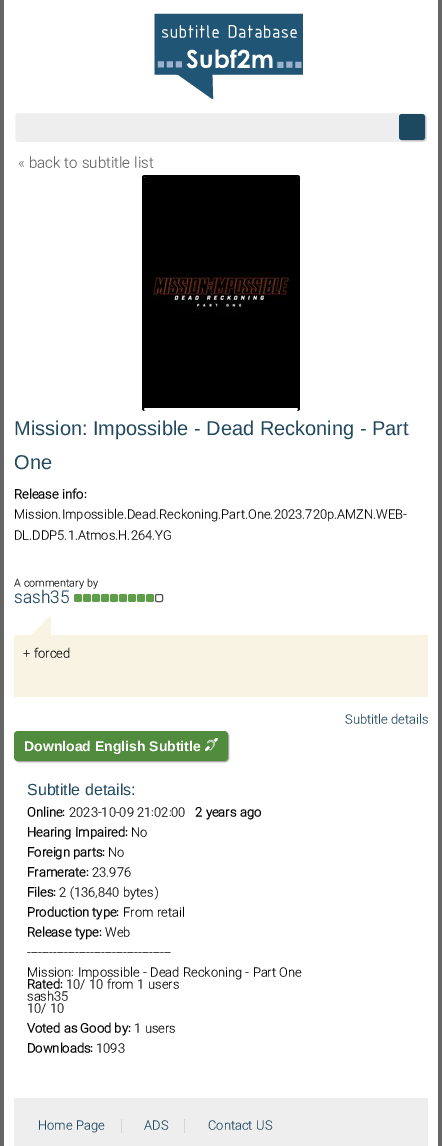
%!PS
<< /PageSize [442 1146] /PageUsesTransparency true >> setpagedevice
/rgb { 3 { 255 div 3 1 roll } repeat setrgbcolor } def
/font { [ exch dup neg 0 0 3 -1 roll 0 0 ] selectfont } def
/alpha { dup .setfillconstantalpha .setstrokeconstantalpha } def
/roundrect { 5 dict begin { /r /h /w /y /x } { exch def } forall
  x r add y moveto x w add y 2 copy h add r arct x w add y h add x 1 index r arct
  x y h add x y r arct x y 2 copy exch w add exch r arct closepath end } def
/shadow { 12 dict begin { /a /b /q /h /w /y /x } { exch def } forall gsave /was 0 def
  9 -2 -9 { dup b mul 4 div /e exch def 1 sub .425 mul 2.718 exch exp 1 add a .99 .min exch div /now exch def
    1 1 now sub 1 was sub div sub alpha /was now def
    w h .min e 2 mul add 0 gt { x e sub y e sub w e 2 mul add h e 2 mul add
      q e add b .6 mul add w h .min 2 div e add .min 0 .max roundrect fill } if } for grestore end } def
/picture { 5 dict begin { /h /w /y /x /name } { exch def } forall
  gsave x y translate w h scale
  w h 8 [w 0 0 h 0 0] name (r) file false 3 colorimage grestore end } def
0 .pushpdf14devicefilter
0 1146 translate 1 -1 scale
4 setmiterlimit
255 255 255 rgb
0 0 442 1146 rectfill
102 102 102 rgb
438 0 4 1146 rectfill
0 0 4 1146 rectfill
(img/1.rgb) 154 13 149 86 picture
238 238 238 rgb
14.5 112.5 413 30 3.5 roundrect gsave fill grestore
255 255 255 rgb
stroke
0 0 0 rgb
400 115 26 26 3 0.5 0.2 shadow
29 73 96 rgb
399 114 26 26 3 roundrect fill
0 0 0 rgb
145 175 moveto 297 175 lineto 299 175 300 176 300 178 curveto 300 408 lineto 300 410 299 411 297 411 curveto 145 411 lineto 143 411 142 410 142 408 curveto 142 178 lineto 142 176 143 175 145 175 curveto closepath 145 177 moveto 297 177 lineto 298 177 298 177 298 178 curveto 298 408 lineto 298 410 298 411 297 411 curveto 145 411 lineto 144 411 144 410 144 408 curveto 144 178 lineto 144 177 144 177 145 177 curveto closepath eofill
(img/2.rgb) 144 177 154 231 picture
94 158 73 rgb
74 594 8 8 2 roundrect fill
83 594 8 8 2 roundrect fill
92 594 8 8 2 roundrect fill
101 594 8 8 2 roundrect fill
110 594 8 8 2 roundrect fill
119 594 8 8 2 roundrect fill
128 594 8 8 2 roundrect fill
137 594 8 8 2 roundrect fill
146 594 8 8 2 roundrect fill
85 85 85 rgb
155.5 594.5 7 7 1.5 roundrect stroke
249 243 228 rgb
14 635 414 62 rectfill
51 642 moveto 24 642 lineto 51 615 lineto closepath fill
0 0 0 rgb
15 732 214 30 4 0.5 0.4 shadow
81 140 62 rgb
14 731 214 30 4 roundrect fill
(img/3.rgb) 205 738 13 13 picture
[
  [14 1098 414 48 238 238 238]
  [121 1119 1 14 214 214 214]
  [184 1119 1 14 214 214 214]
] { aload pop rgb rectfill } forall
/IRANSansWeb-Light 14 font
102 102 102 rgb
18 167 moveto (« back to subtitle list) show
/LiberationSans-Regular 20 font
33 73 95 rgb
14 435 moveto (Mission: Impossible - Dead Reckoning - Part) show
14 469 moveto (One) show
/IRANSansWeb-Bold 12 font
0 0 0 rgb
14 498 moveto (Release info:) show
/IRANSansWeb-Light 12 font
14 518 moveto (Mission.Impossible.Dead.Reckoning.Part.One.2023.720p.AMZN.WEB-) show
14 539 moveto (DL.DDP5.1.Atmos.H.264.YG) show
/IRANSansWeb-Light 10 font
14 586 moveto (A commentary by) show
/IRANSansWeb-Light 16 font
33 73 95 rgb
14 602 moveto (sash35) show
/IRANSansWeb-Light 12 font
0 0 0 rgb
23 657 moveto (+ forced) show
33 73 95 rgb
345 723 moveto (Subtitle details) show
/LiberationSans-Bold 14 font
255 255 255 rgb
24 751 moveto (Download English Subtitle) show
/LiberationSans-Regular 16 font
33 73 95 rgb
27 795 moveto (Subtitle details:) show
/IRANSansWeb-Bold 12 font
0 0 0 rgb
27 816 moveto (Online:) show
/IRANSansWeb-Light 12 font
69 816 moveto (2023-10-09 21:02:00) show
/IRANSansWeb-Bold 12 font
195 816 moveto (2 years ago) show
27 836 moveto (Hearing Impaired:) show
/IRANSansWeb-Light 12 font
131 836 moveto (No) show
/IRANSansWeb-Bold 12 font
27 856 moveto (Foreign parts:) show
/IRANSansWeb-Light 12 font
108 856 moveto (No) show
/IRANSansWeb-Bold 12 font
27 876 moveto (Framerate:) show
/IRANSansWeb-Light 12 font
92 876 moveto (23.976) show
/IRANSansWeb-Bold 12 font
27 896 moveto (Files:) show
/IRANSansWeb-Light 12 font
59 896 moveto (2 \(136,840 bytes\)) show
/IRANSansWeb-Bold 12 font
27 916 moveto (Production type:) show
/IRANSansWeb-Light 12 font
123 916 moveto (From retail) show
/IRANSansWeb-Bold 12 font
27 936 moveto (Release type:) show
/IRANSansWeb-Light 12 font
[
  [(Web) 105 936]
  [(---------------------------------------) 27 956]
  [(Mission: Impossible - Dead Reckoning - Part One) 27 976]
] { aload pop moveto show } forall
/IRANSansWeb-Bold 12 font
27 988 moveto (Rated:) show
/IRANSansWeb-Light 12 font
[
  [(10/ 10 from 1 users) 66 988]
  [(sash35) 27 1000]
  [(10/ 10) 27 1012]
] { aload pop moveto show } forall
/IRANSansWeb-Bold 12 font
27 1032 moveto (Voted as Good by:) show
/IRANSansWeb-Light 12 font
134 1032 moveto (1 users) show
/IRANSansWeb-Bold 12 font
27 1052 moveto (Downloads:) show
/IRANSansWeb-Light 12 font
96 1052 moveto (1093) show
33 73 95 rgb
[
  [(Home Page) 38 1129]
  [(ADS) 144 1129]
  [(Contact US) 208 1129]
] { aload pop moveto show } forall
.poppdf14devicefilter showpage
